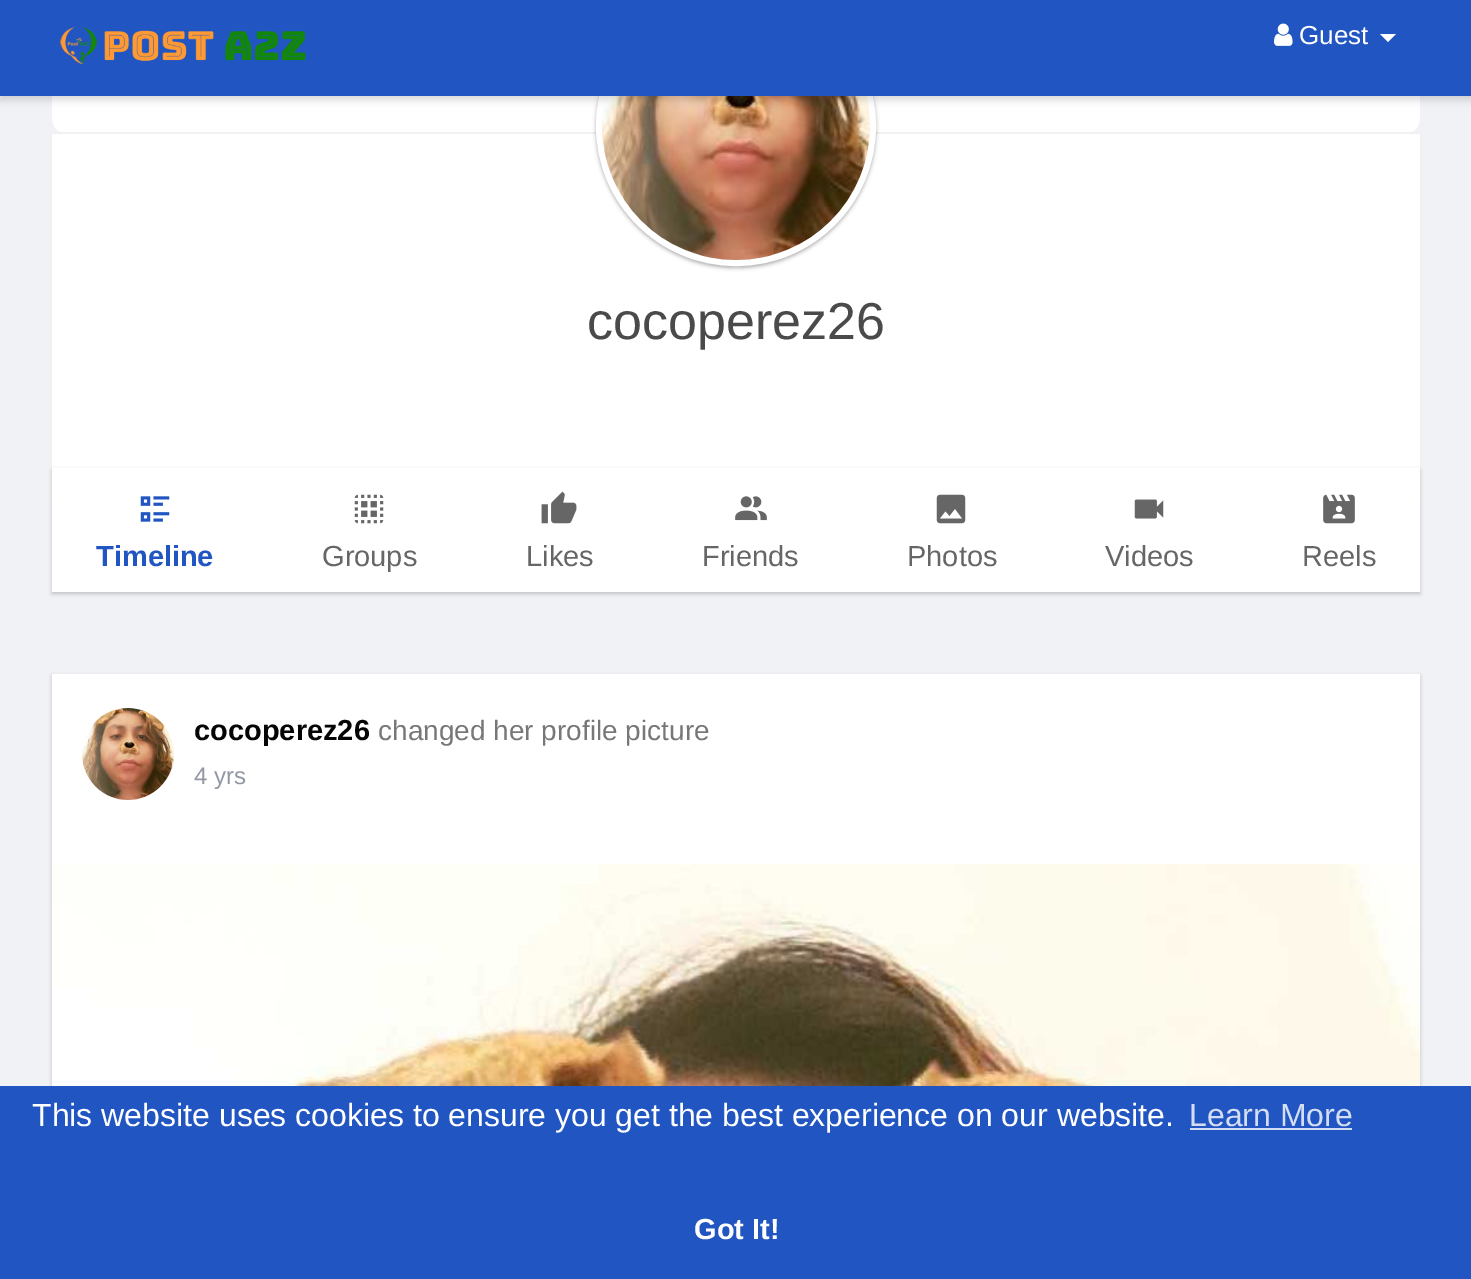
%!PS
<< /PageSize [1471 1279] /PageUsesTransparency true >> setpagedevice
/rgb { 3 { 255 div 3 1 roll } repeat setrgbcolor } def
/font { [ exch dup neg 0 0 3 -1 roll 0 0 ] selectfont } def
/alpha { dup .setfillconstantalpha .setstrokeconstantalpha } def
/circle { newpath 0 360 arc closepath } def
/roundrect { 5 dict begin { /r /h /w /y /x } { exch def } forall
  x r add y moveto x w add y 2 copy h add r arct x w add y h add x 1 index r arct
  x y h add x y r arct x y 2 copy exch w add exch r arct closepath end } def
/shadow { 12 dict begin { /a /b /q /h /w /y /x } { exch def } forall gsave /was 0 def
  9 -2 -9 { dup b mul 4 div /e exch def 1 sub .425 mul 2.718 exch exp 1 add a .99 .min exch div /now exch def
    1 1 now sub 1 was sub div sub alpha /was now def
    w h .min e 2 mul add 0 gt { x e sub y e sub w e 2 mul add h e 2 mul add
      q e add b .6 mul add w h .min 2 div e add .min 0 .max roundrect fill } if } for grestore end } def
/picture { 5 dict begin { /h /w /y /x /name } { exch def } forall
  gsave x y translate w h scale
  w h 8 [w 0 0 h 0 0] name (r) file false 3 colorimage grestore end } def
0 .pushpdf14devicefilter
0 1279 translate 1 -1 scale
4 setmiterlimit
240 242 245 rgb
0 0 1471 1279 rectfill
255 255 255 rgb
52 90 moveto 1420 90 lineto 1420 118 lineto 1420 127 1413 134 1404 134 curveto 68 134 lineto 59 134 52 127 52 118 curveto closepath fill
241 241 241 rgb
2 setlinewidth
51 133 1370 362 rectstroke
255 255 255 rgb
52 134 1368 334 rectfill
68 68 68 rgb
596 -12 280 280 140 2 0.42 shadow
255 255 255 rgb
6 setlinewidth
736 126 137 circle stroke
(img/3.rgb) 602 96 268 164 picture
0 0 0 rgb
0 4 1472 96 0 4 0.15 shadow
33 85 193 rgb
0 0 1471 96 rectfill
(img/1.rgb) 60 27 246 38 picture
(img/2.rgb) 1274 23 19 23 picture
255 255 255 rgb
1380 34 moveto 1396 34 lineto 1388 42 lineto closepath fill
0 0 0 rgb
52 470 1368 124 0 2 0.2 shadow
255 255 255 rgb
52 468 1368 124 rectfill
(img/4.rgb) 140 496 30 26 picture
(img/5.rgb) 354 494 30 30 picture
(img/6.rgb) 541 491 36 33 picture
(img/7.rgb) 735 496 32 25 picture
(img/8.rgb) 936 494 30 30 picture
(img/9.rgb) 1134 499 30 20 picture
(img/10.rgb) 1323 494 32 30 picture
0 0 0 rgb
52 676 1368 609 0 2 0.2 shadow
255 255 255 rgb
52 674 1368 190 rectfill
(img/11.rgb) 82 708 92 92 picture
(img/12.rgb) 52 864 1368 222 picture
33 85 193 rgb
0 1086 1471 193 rectfill
211 221 243 rgb
1190 1128 162 2 rectfill
/LiberationSans-Regular 26 font
255 255 255 rgb
1299 44 moveto (Guest) show
/LiberationSans-Regular 52 font
74 74 74 rgb
587 339 moveto (cocoperez26) show
/LiberationSans-Bold 29 font
33 85 193 rgb
96 566 moveto (Timeline) show
/LiberationSans-Regular 29 font
102 102 102 rgb
[
  [(Groups) 322 566]
  [(Likes) 526 566]
  [(Friends) 702 566]
  [(Photos) 907 566]
  [(Videos) 1105 566]
  [(Reels) 1302 566]
] { aload pop moveto show } forall
/LiberationSans-Bold 29 font
5 5 5 rgb
194 740 moveto (cocoperez26) show
/LiberationSans-Regular 28 font
119 119 119 rgb
378 740 moveto (changed her profile picture) show
/LiberationSans-Regular 24 font
145 151 163 rgb
194 784 moveto (4 yrs) show
/LiberationSans-Regular 32 font
255 255 255 rgb
32 1126 moveto (This website uses cookies to ensure you get the best experience on our website.) show
211 221 243 rgb
1189 1126 moveto (Learn More) show
/LiberationSans-Bold 29 font
255 255 255 rgb
694 1239 moveto (Got It!) show
.poppdf14devicefilter showpage
